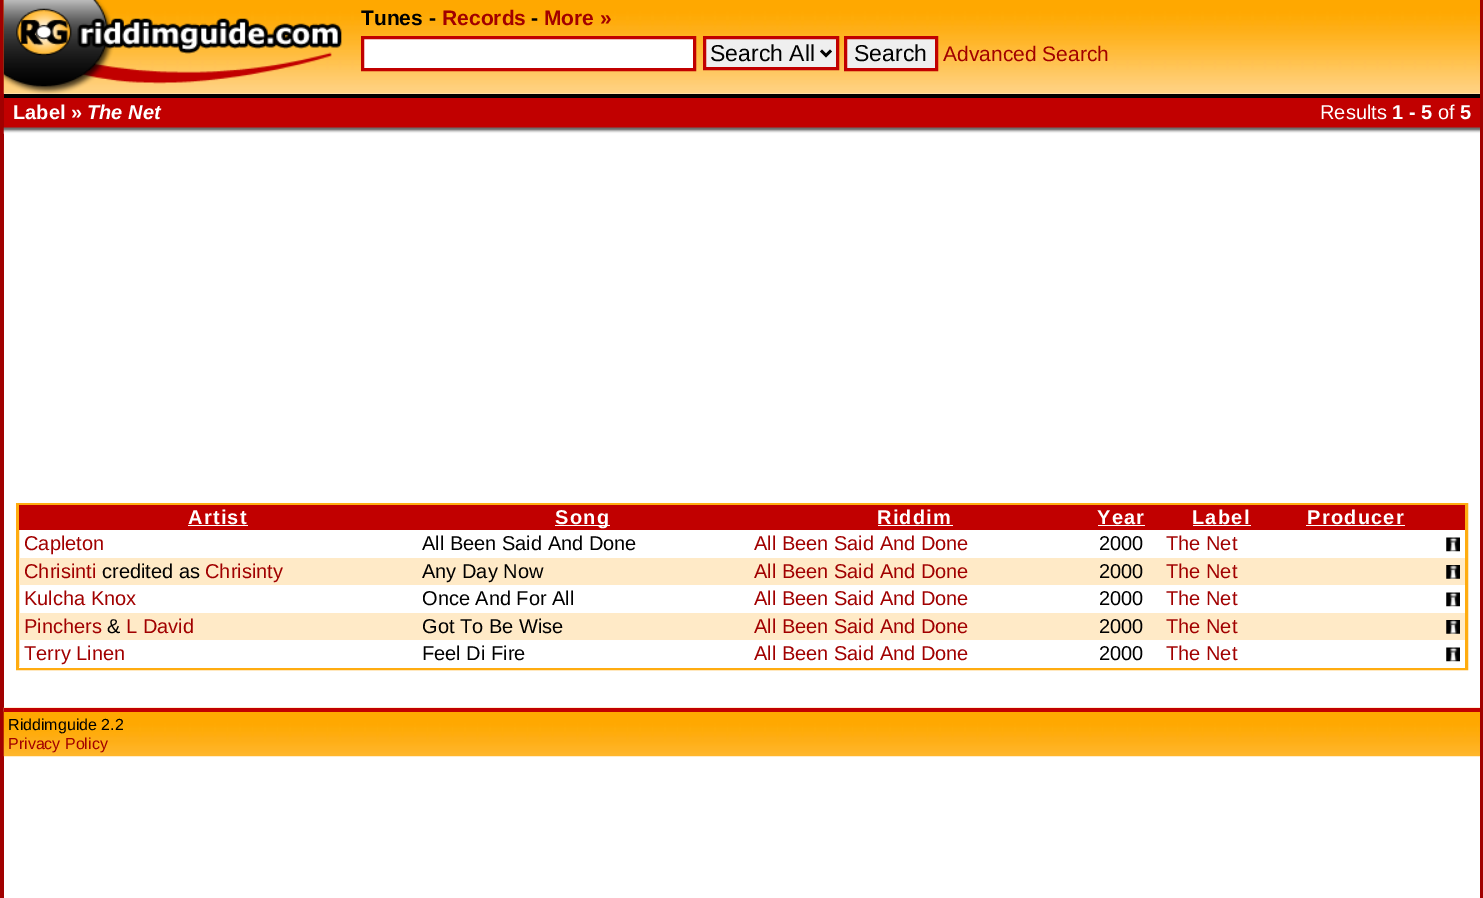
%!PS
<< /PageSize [1483 898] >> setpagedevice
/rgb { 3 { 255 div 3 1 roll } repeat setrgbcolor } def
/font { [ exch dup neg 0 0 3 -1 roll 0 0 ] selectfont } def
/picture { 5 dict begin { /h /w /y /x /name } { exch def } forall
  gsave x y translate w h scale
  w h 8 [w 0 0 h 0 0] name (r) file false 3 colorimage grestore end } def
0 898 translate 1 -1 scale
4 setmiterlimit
255 255 255 rgb
0 0 1483 898 rectfill
161 0 0 rgb
1480 0 3 898 rectfill
0 0 4 898 rectfill
(img/1.rgb) 3 0 1477 94 picture
(img/2.rgb) 3 0 339 94 picture
255 255 255 rgb
362.5 37.5 moveto 694.5 37.5 lineto 694.5 69.5 lineto 362.5 69.5 lineto closepath gsave fill grestore
193 0 0 rgb
3 setlinewidth
stroke
239 239 239 rgb
704.5 37.5 moveto 837.5 37.5 lineto 837.5 68.5 lineto 704.5 68.5 lineto closepath gsave fill grestore
193 0 0 rgb
stroke
0 0 0 rgb
2.5 setlinewidth
821 50.5 moveto 826 55.5 lineto 831 50.5 lineto stroke
239 239 239 rgb
845.5 37.5 moveto 936.5 37.5 lineto 936.5 69.5 lineto 845.5 69.5 lineto closepath gsave fill grestore
193 0 0 rgb
3 setlinewidth
stroke
4 98 1476 30 rectfill
0 0 0 rgb
4 94 1476 4 rectfill
(img/3.rgb) 3 127 1477 7 picture
255 172 16 rgb
17.5 504.5 1449 164 rectstroke
[
  [19 505 1446 25 193 0 0]
  [188 525 60 1 255 255 255]
  [555 525 55 1 255 255 255]
  [878 525 75 1 255 255 255]
  [1098 525 47 1 255 255 255]
  [1193 525 58 1 255 255 255]
  [1306 525 99 1 255 255 255]
] { aload pop rgb rectfill } forall
(img/4.rgb) 1446 537 14 15 picture
255 234 199 rgb
19 558 1446 27 rectfill
(img/5.rgb) 1446 565 14 14 picture
(img/4.rgb) 1446 592 14 15 picture
19 613 1446 27 rectfill
(img/5.rgb) 1446 620 14 14 picture
255 255 255 rgb
19 667 1446 1 rectfill
(img/4.rgb) 1446 647 14 15 picture
(img/6.rgb) 3 707 1477 50 picture
193 0 0 rgb
4 708 1476 4 rectfill
/LiberationSans-Bold 21 font
0 0 0 rgb
361 25 moveto (Tunes -) show
161 0 0 rgb
442 25 moveto (Records) show
0 0 0 rgb
531 25 moveto (-) show
161 0 0 rgb
544 25 moveto (More ») show
/LiberationSans-Regular 23 font
0 0 0 rgb
710 61 moveto (Search All) show
854 61 moveto (Search) show
/LiberationSans-Regular 21 font
161 0 0 rgb
943 61 moveto (Advanced Search) show
/LiberationSans-Bold 20 font
255 255 255 rgb
13 119 moveto (Label ») show
/LiberationSans-BoldItalic 20 font
87 119 moveto (The Net) show
/LiberationSans-Regular 20 font
1320 119 moveto (Results) show
/LiberationSans-Bold 20 font
1392 119 moveto (1 - 5) show
/LiberationSans-Regular 20 font
1438 119 moveto (of) show
/LiberationSans-Bold 20 font
1460 119 moveto (5) show
188 524 moveto 1.25 0 (Artist) ashow
555 524 moveto 1.25 0 (Song) ashow
877 524 moveto 1.25 0 (Riddim) ashow
1097 524 moveto 1.25 0 (Year) ashow
1192 524 moveto 1.25 0 (Label) ashow
1307 524 moveto 1.25 0 (Producer) ashow
/LiberationSans-Regular 20 font
161 0 0 rgb
24 550 moveto (Capleton) show
0 0 0 rgb
422 550 moveto (All Been Said And Done) show
161 0 0 rgb
754 550 moveto (All Been Said And Done) show
0 0 0 rgb
1099 550 moveto (2000) show
161 0 0 rgb
1166 550 moveto (The Net) show
24 578 moveto (Chrisinti) show
0 0 0 rgb
102 578 moveto (credited as) show
161 0 0 rgb
205 578 moveto (Chrisinty) show
0 0 0 rgb
422 578 moveto (Any Day Now) show
161 0 0 rgb
754 578 moveto (All Been Said And Done) show
0 0 0 rgb
1099 578 moveto (2000) show
161 0 0 rgb
1166 578 moveto (The Net) show
24 605 moveto (Kulcha Knox) show
0 0 0 rgb
422 605 moveto (Once And For All) show
161 0 0 rgb
754 605 moveto (All Been Said And Done) show
0 0 0 rgb
1099 605 moveto (2000) show
161 0 0 rgb
1166 605 moveto (The Net) show
24 633 moveto (Pinchers) show
0 0 0 rgb
107 633 moveto (&) show
161 0 0 rgb
126 633 moveto (L David) show
0 0 0 rgb
422 633 moveto (Got To Be Wise) show
161 0 0 rgb
754 633 moveto (All Been Said And Done) show
0 0 0 rgb
1099 633 moveto (2000) show
161 0 0 rgb
1166 633 moveto (The Net) show
24 660 moveto (Terry Linen) show
0 0 0 rgb
422 660 moveto (Feel Di Fire) show
161 0 0 rgb
754 660 moveto (All Been Said And Done) show
0 0 0 rgb
1099 660 moveto (2000) show
161 0 0 rgb
1166 660 moveto (The Net) show
/LiberationSans-Regular 16 font
0 0 0 rgb
8 730 moveto (Riddimguide 2.2) show
161 0 0 rgb
8 749 moveto (Privacy Policy) show
showpage
